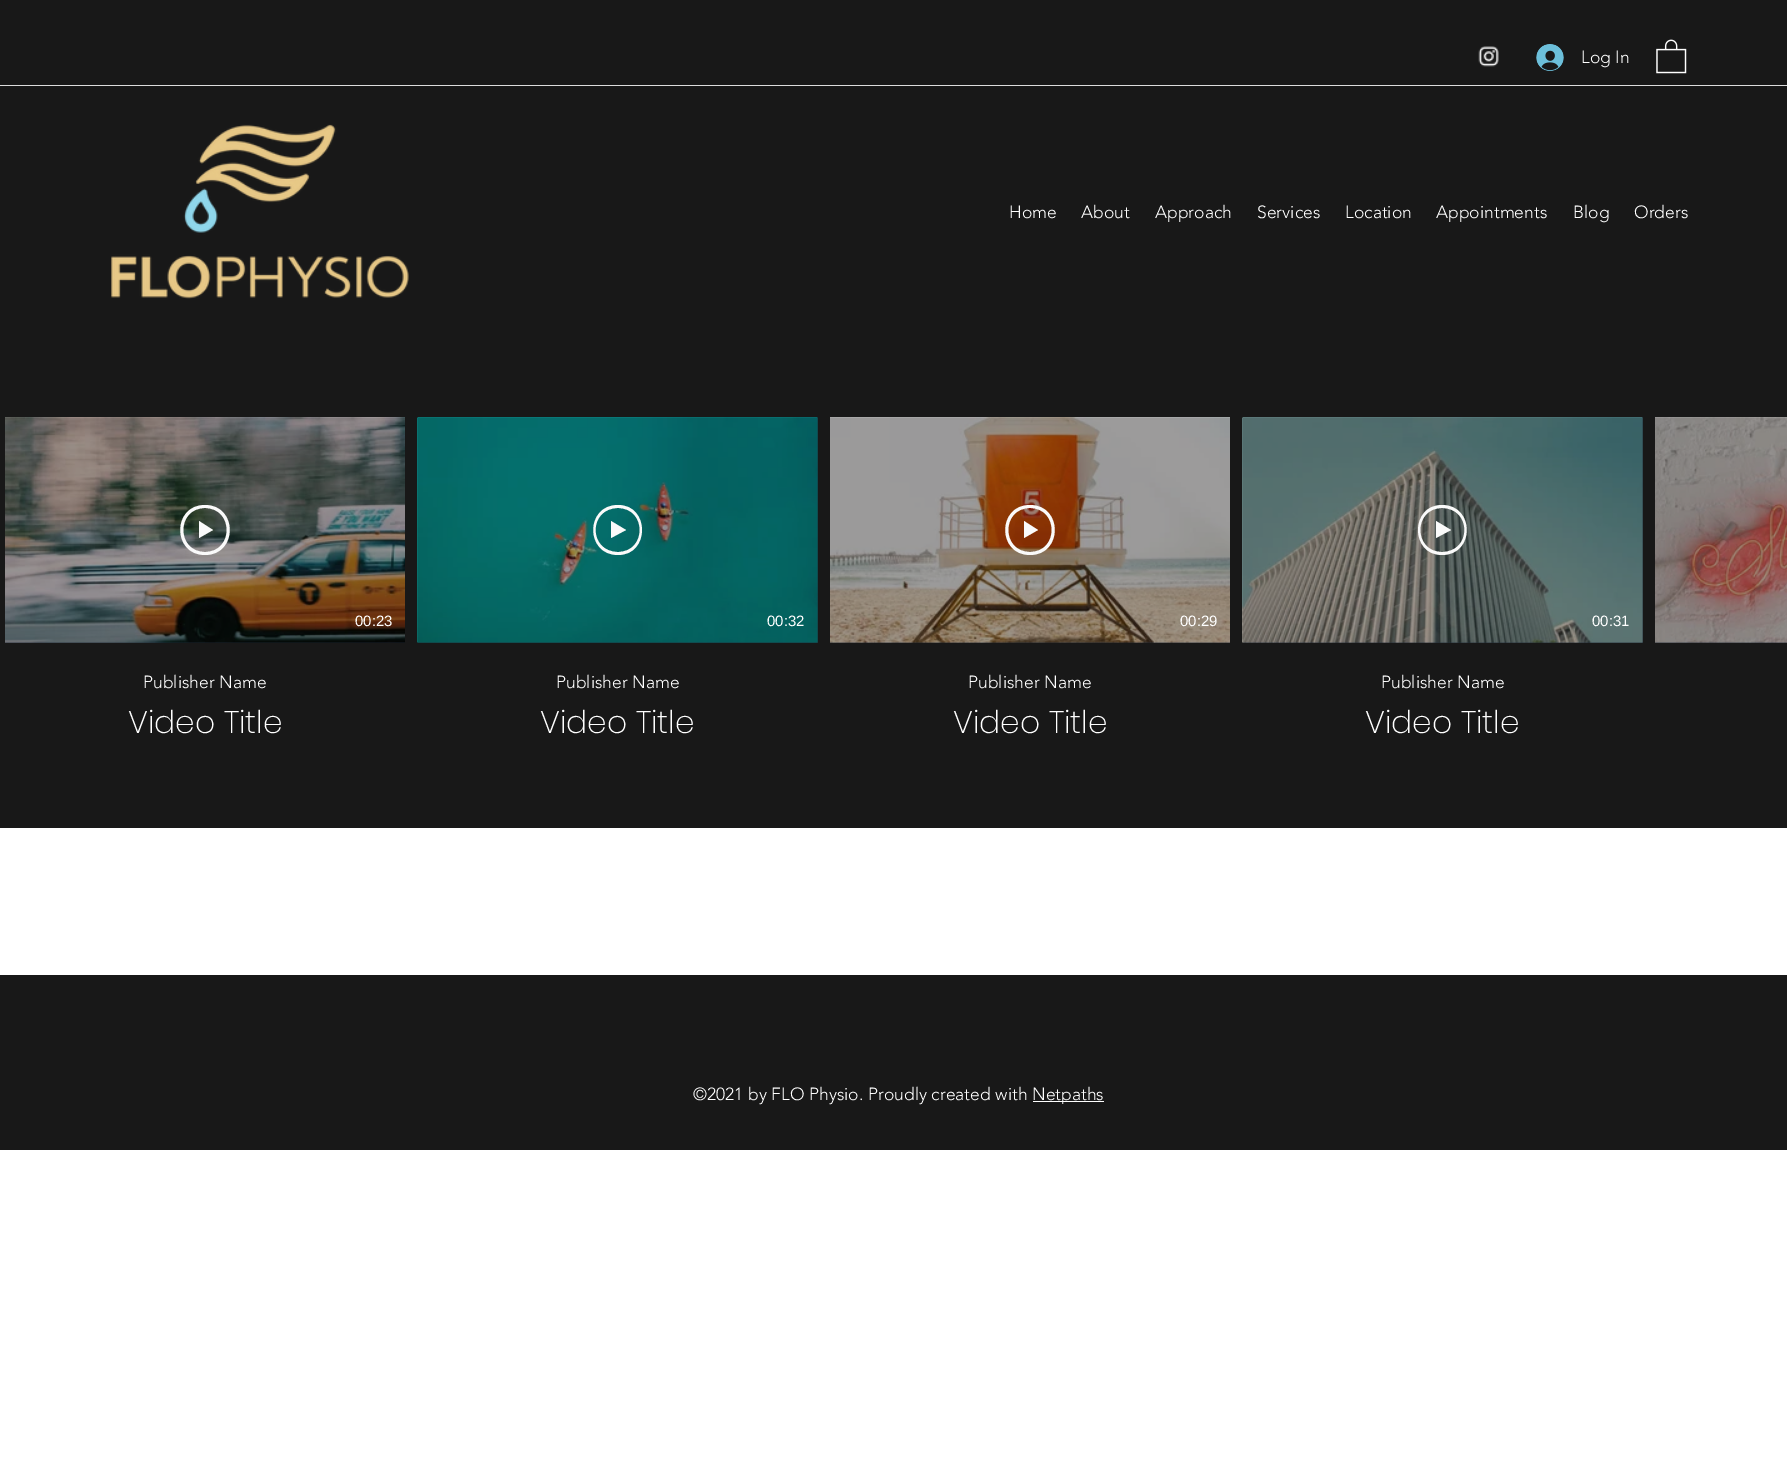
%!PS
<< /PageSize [1787 1470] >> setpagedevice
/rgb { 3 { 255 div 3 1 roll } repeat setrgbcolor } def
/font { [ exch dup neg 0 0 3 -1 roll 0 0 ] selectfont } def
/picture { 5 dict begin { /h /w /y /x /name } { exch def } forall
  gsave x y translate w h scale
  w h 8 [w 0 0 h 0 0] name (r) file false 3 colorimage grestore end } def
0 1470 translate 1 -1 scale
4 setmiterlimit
255 255 255 rgb
0 0 1787 1470 rectfill
24 24 24 rgb
0 0 1787 828 rectfill
(img/1.rgb) 1478 46 21 21 picture
(img/2.rgb) 1536 44 28 27 picture
(img/3.rgb) 1656 39 31 35 picture
220 220 220 rgb
0 85 1787 1 rectfill
(img/4.rgb) 111 124 298 175 picture
35 44 58 rgb
1655 642 132 1 rectfill
(img/5.rgb) 1655 417 132 226 picture
(img/6.rgb) 1655 417 132 226 picture
5 642 400 1 rectfill
(img/7.rgb) 5 417 400 226 picture
(img/8.rgb) 5 417 400 226 picture
250 250 250 rgb
205 552 moveto 234 552 234 508 205 508 curveto 176 508 176 552 205 552 curveto closepath 205 555 moveto 172 555 172 505 205 505 curveto 238 505 238 555 205 555 curveto closepath 213 530 moveto 199 521 lineto 199 538 lineto closepath fill
35 44 58 rgb
418 418 400 225 rectfill
(img/9.rgb) 417 417 401 226 picture
(img/10.rgb) 417 417 401 226 picture
250 250 250 rgb
618 552 moveto 647 552 647 508 618 508 curveto 588 508 588 552 618 552 curveto closepath 618 555 moveto 585 555 585 505 618 505 curveto 650 505 650 555 618 555 curveto closepath 626 530 moveto 611 521 lineto 611 538 lineto closepath fill
35 44 58 rgb
830 642 400 1 rectfill
(img/11.rgb) 830 417 400 226 picture
(img/12.rgb) 830 417 400 226 picture
250 250 250 rgb
1030 552 moveto 1059 552 1059 508 1030 508 curveto 1001 508 1001 552 1030 552 curveto closepath 1030 555 moveto 997 555 997 505 1030 505 curveto 1063 505 1063 555 1030 555 curveto closepath 1038 530 moveto 1024 521 lineto 1024 538 lineto closepath fill
35 44 58 rgb
1243 418 400 225 rectfill
(img/13.rgb) 1242 417 401 226 picture
(img/14.rgb) 1242 417 401 226 picture
250 250 250 rgb
1442 552 moveto 1472 552 1472 508 1442 508 curveto 1413 508 1413 552 1442 552 curveto closepath 1442 555 moveto 1410 555 1410 505 1442 505 curveto 1475 505 1475 555 1442 555 curveto closepath 1451 530 moveto 1436 521 lineto 1436 538 lineto closepath fill
24 24 24 rgb
0 975 1787 175 rectfill
255 255 255 rgb
1033 1101 71 1 rectfill
/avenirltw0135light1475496-Light 17.5 font
[
  [(Log In) 1581 63]
  [(Home) 1009 218]
  [(About) 1081 218]
  [(Approach) 1155 218]
  [(Services) 1257 218]
  [(Location) 1345 218]
  [(Appointments) 1436 218]
  [(Blog) 1573 218]
  [(Orders) 1634 218]
] { aload pop moveto show } forall
/LiberationSans-Regular 15 font
355 626 moveto (00:23) show
/avenirltw0135light1475496-Light 17.5 font
143 688 moveto (Publisher Name) show
/Poppins-ExtraLight 31.25 font
128 733 moveto (Video Title) show
/LiberationSans-Regular 15 font
767 626 moveto (00:32) show
/avenirltw0135light1475496-Light 17.5 font
556 688 moveto (Publisher Name) show
/Poppins-ExtraLight 31.25 font
540 733 moveto (Video Title) show
/LiberationSans-Regular 15 font
1180 626 moveto (00:29) show
/avenirltw0135light1475496-Light 17.5 font
968 688 moveto (Publisher Name) show
/Poppins-ExtraLight 31.25 font
953 733 moveto (Video Title) show
/LiberationSans-Regular 15 font
1592 626 moveto (00:31) show
/avenirltw0135light1475496-Light 17.5 font
1381 688 moveto (Publisher Name) show
/Poppins-ExtraLight 31.25 font
1365 733 moveto (Video Title) show
/avenirltw0135light1475496-Light 17.5 font
693 1100 moveto (©2021 by FLO Physio. Proudly created with) show
1032 1100 moveto (Netpaths) show
showpage
